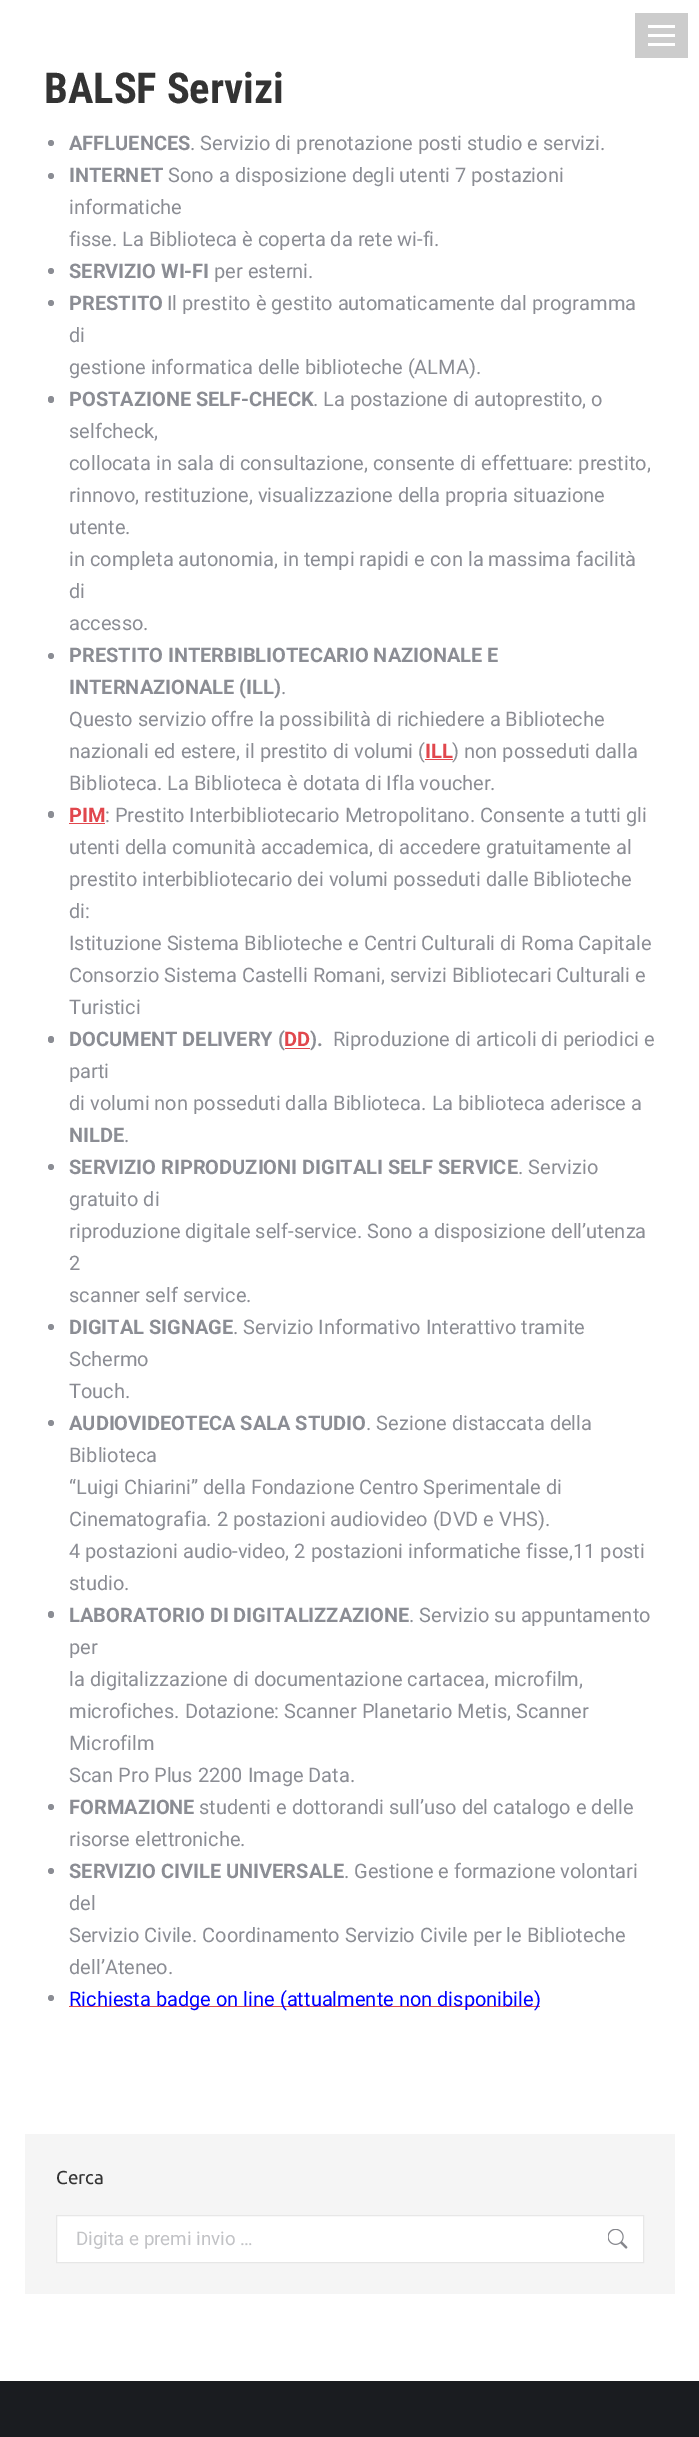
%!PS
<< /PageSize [699 2437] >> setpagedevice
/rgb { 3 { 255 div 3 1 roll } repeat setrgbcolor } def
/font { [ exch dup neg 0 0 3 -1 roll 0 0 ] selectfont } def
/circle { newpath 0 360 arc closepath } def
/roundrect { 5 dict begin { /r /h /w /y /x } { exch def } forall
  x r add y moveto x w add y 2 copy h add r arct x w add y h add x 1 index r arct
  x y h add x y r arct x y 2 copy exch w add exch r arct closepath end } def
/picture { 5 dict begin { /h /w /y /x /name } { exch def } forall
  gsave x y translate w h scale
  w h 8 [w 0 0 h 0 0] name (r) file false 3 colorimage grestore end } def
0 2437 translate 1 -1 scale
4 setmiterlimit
255 255 255 rgb
0 0 699 2437 rectfill
[
  [635 13 53 45 204 204 204]
  [648 25 27 3 255 255 255]
  [648 34 27 3 255 255 255]
  [648 43 27 3 255 255 255]
] { aload pop rgb rectfill } forall
139 141 148 rgb
51 143 3 circle fill
51 176 3 circle fill
51 271 3 circle fill
51 303 3 circle fill
48 396 6 7 3 roundrect fill
51 656 3 circle fill
225 71 77 rgb
425 759 28 1 rectfill
139 141 148 rgb
48 811 6 7 3 roundrect fill
225 71 77 rgb
69 823 36 1 rectfill
139 141 148 rgb
48 1036 6 7 3 roundrect fill
225 71 77 rgb
285 1048 25 1 rectfill
139 141 148 rgb
51 1167 3 circle fill
51 1327 3 circle fill
51 1423 3 circle fill
48 1611 6 7 3 roundrect fill
51 1807 3 circle fill
51 1871 3 circle fill
51 1998 3 circle fill
225 71 77 rgb
69 2006 471 1 rectfill
245 245 245 rgb
25 2134 650 160 rectfill
255 255 255 rgb
56.5 2215.5 moveto 643.5 2215.5 lineto 643.5 2262.5 lineto 56.5 2262.5 lineto closepath gsave fill grestore
231 231 231 rgb
stroke
(img/1.rgb) 608 2229 20 20 picture
26 28 32 rgb
0 2381 699 56 rectfill
/RobotoCondensed-Bold 42.5 font
51 51 51 rgb
44 103 moveto (BALSF Servizi) show
/Roboto-Bold 20 font
139 141 148 rgb
69 150 moveto (AFFLUENCES) show
/Roboto-Regular 20 font
190 150 moveto (. Servizio di prenotazione posti studio e servizi.) show
/Roboto-Bold 20 font
69 182 moveto (INTERNET) show
/Roboto-Regular 20 font
[
  [(Sono a disposizione degli utenti 7 postazioni) 168 182]
  [(informatiche) 69 214]
  [(fisse. La Biblioteca è coperta da rete wi-fi.) 69 246]
] { aload pop moveto show } forall
/Roboto-Bold 20 font
69 278 moveto (SERVIZIO WI-FI) show
/Roboto-Regular 20 font
214 278 moveto (per esterni.) show
/Roboto-Bold 20 font
69 310 moveto (PRESTITO) show
/Roboto-Regular 20 font
[
  [(Il prestito è gestito automaticamente dal programma) 167 310]
  [(di) 69 342]
  [(gestione informatica delle biblioteche \(ALMA\).) 69 374]
] { aload pop moveto show } forall
/Roboto-Bold 20 font
69 406 moveto (POSTAZIONE SELF-CHECK) show
/Roboto-Regular 20 font
[
  [(. La postazione di autoprestito, o) 313 406]
  [(selfcheck,) 69 438]
  [(collocata in sala di consultazione, consente di effettuare: prestito,) 69 470]
  [(rinnovo, restituzione, visualizzazione della propria situazione) 69 502]
  [(utente.) 69 534]
  [(in completa autonomia, in tempi rapidi e con la massima facilità) 69 566]
  [(di) 69 598]
  [(accesso.) 69 630]
] { aload pop moveto show } forall
/Roboto-Bold 20 font
69 662 moveto (PRESTITO INTERBIBLIOTECARIO NAZIONALE E) show
69 694 moveto (INTERNAZIONALE \(ILL\)) show
/Roboto-Regular 20 font
[
  [(.) 281 694]
  [(Questo servizio offre la possibilità di richiedere a Biblioteche) 69 726]
  [(nazionali ed estere, il prestito di volumi \() 69 758]
] { aload pop moveto show } forall
/Roboto-Bold 20 font
225 71 77 rgb
425 758 moveto (ILL) show
/Roboto-Regular 20 font
139 141 148 rgb
452 758 moveto (\) non posseduti dalla) show
69 790 moveto (Biblioteca. La Biblioteca è dotata di Ifla voucher.) show
/Roboto-Bold 20 font
225 71 77 rgb
69 822 moveto (PIM) show
/Roboto-Regular 20 font
139 141 148 rgb
[
  [(: Prestito Interbibliotecario Metropolitano. Consente a tutti gli) 105 822]
  [(utenti della comunità accademica, di accedere gratuitamente al) 69 854]
  [(prestito interbibliotecario dei volumi posseduti dalle Biblioteche) 69 886]
  [(di:) 69 918]
  [(Istituzione Sistema Biblioteche e Centri Culturali di Roma Capitale) 69 950]
  [(Consorzio Sistema Castelli Romani, servizi Bibliotecari Culturali e) 69 982]
  [(Turistici) 69 1014]
] { aload pop moveto show } forall
/Roboto-Bold 20 font
69 1046 moveto (DOCUMENT DELIVERY \() show
225 71 77 rgb
284 1046 moveto (DD) show
139 141 148 rgb
310 1046 moveto (\).) show
/Roboto-Regular 20 font
[
  [(Riproduzione di articoli di periodici e) 333 1046]
  [(parti) 69 1078]
  [(di volumi non posseduti dalla Biblioteca. La biblioteca aderisce a) 69 1110]
] { aload pop moveto show } forall
/Roboto-Bold 20 font
69 1142 moveto (NILDE) show
/Roboto-Regular 20 font
124 1142 moveto (.) show
/Roboto-Bold 20 font
69 1174 moveto (SERVIZIO RIPRODUZIONI DIGITALI SELF SERVICE) show
/Roboto-Regular 20 font
[
  [(. Servizio) 518 1174]
  [(gratuito di) 69 1206]
  [(riproduzione digitale self-service. Sono a disposizione dell’utenza) 69 1238]
  [(2) 69 1270]
  [(scanner self service.) 69 1302]
] { aload pop moveto show } forall
/Roboto-Bold 20 font
69 1334 moveto (DIGITAL SIGNAGE) show
/Roboto-Regular 20 font
[
  [(. Servizio Informativo Interattivo tramite) 233 1334]
  [(Schermo) 69 1366]
  [(Touch.) 69 1398]
] { aload pop moveto show } forall
/Roboto-Bold 20 font
69 1430 moveto (AUDIOVIDEOTECA SALA STUDIO) show
/Roboto-Regular 20 font
[
  [(. Sezione distaccata della) 366 1430]
  [(Biblioteca) 69 1462]
  [(“Luigi Chiarini” della Fondazione Centro Sperimentale di) 69 1494]
  [(Cinematografia. 2 postazioni audiovideo \(DVD e VHS\).) 69 1526]
  [(4 postazioni audio-video, 2 postazioni informatiche fisse,11 posti) 69 1558]
  [(studio.) 69 1590]
] { aload pop moveto show } forall
/Roboto-Bold 20 font
69 1622 moveto (LABORATORIO DI DIGITALIZZAZIONE) show
/Roboto-Regular 20 font
[
  [(. Servizio su appuntamento) 409 1622]
  [(per) 69 1654]
  [(la digitalizzazione di documentazione cartacea, microfilm,) 69 1686]
  [(microfiches. Dotazione: Scanner Planetario Metis, Scanner) 69 1718]
  [(Microfilm) 69 1750]
  [(Scan Pro Plus 2200 Image Data.) 69 1782]
] { aload pop moveto show } forall
/Roboto-Bold 20 font
69 1814 moveto (FORMAZIONE) show
/Roboto-Regular 20 font
199 1814 moveto (studenti e dottorandi sull’uso del catalogo e delle) show
69 1846 moveto (risorse elettroniche.) show
/Roboto-Bold 20 font
69 1878 moveto (SERVIZIO CIVILE UNIVERSALE) show
/Roboto-Regular 20 font
[
  [(. Gestione e formazione volontari) 344 1878]
  [(del) 69 1910]
  [(Servizio Civile. Coordinamento Servizio Civile per le Biblioteche) 69 1942]
  [(dell’Ateneo.) 69 1974]
] { aload pop moveto show } forall
0 0 255 rgb
69 2006 moveto (Richiesta badge on line \(attualmente non disponibile\)) show
/Ubuntu-Regular 18.75 font
51 51 51 rgb
56 2184 moveto (Cerca) show
/Roboto-Regular 18.75 font
194 195 198 rgb
76 2245 moveto (Digita e premi invio …) show
showpage
